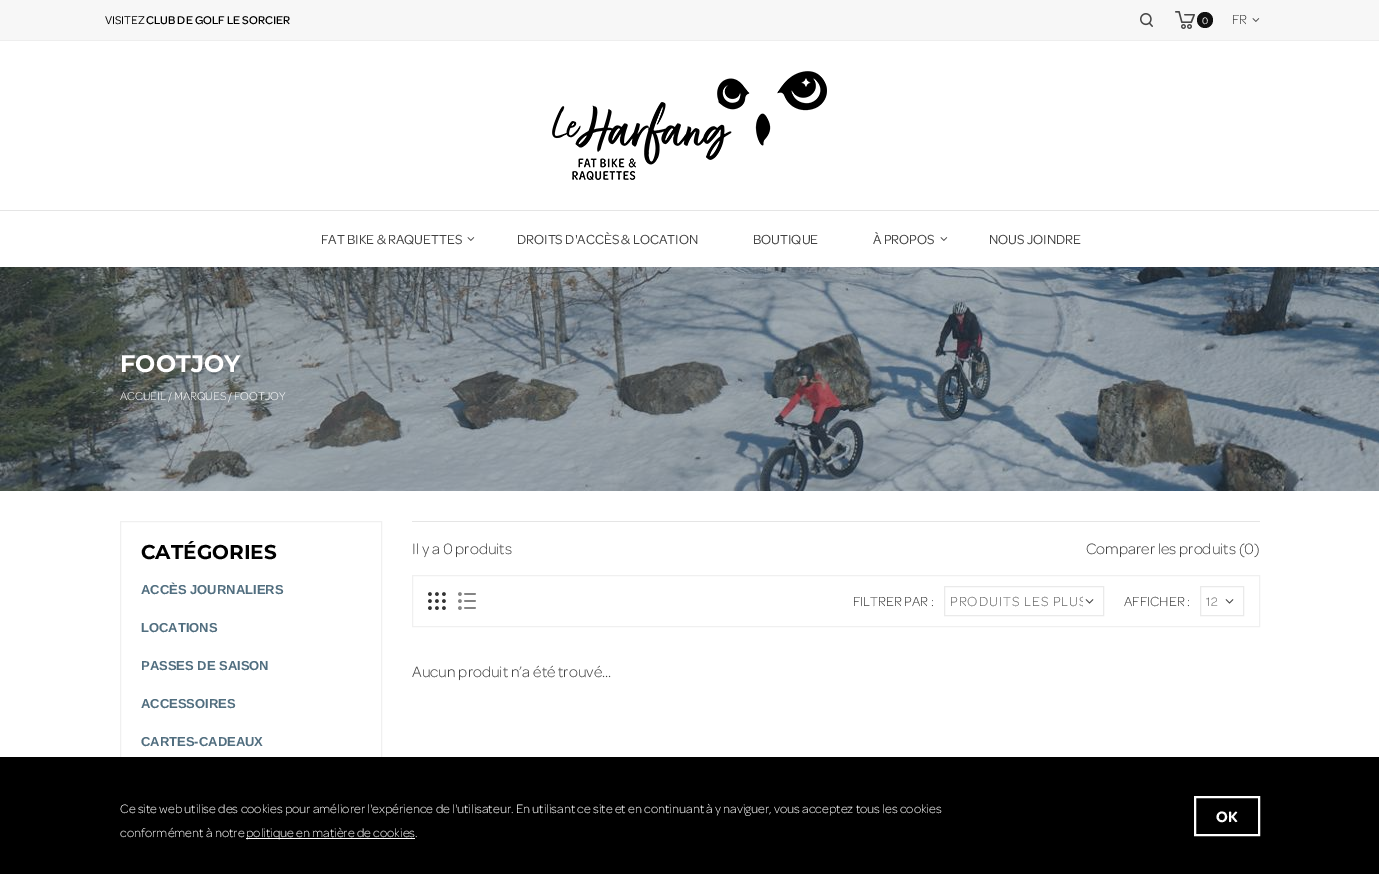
%!PS
<< /PageSize [1379 874] >> setpagedevice
/rgb { 3 { 255 div 3 1 roll } repeat setrgbcolor } def
/font { [ exch dup neg 0 0 3 -1 roll 0 0 ] selectfont } def
/circle { newpath 0 360 arc closepath } def
/picture { 5 dict begin { /h /w /y /x /name } { exch def } forall
  gsave x y translate w h scale
  w h 8 [w 0 0 h 0 0] name (r) file false 3 colorimage grestore end } def
0 874 translate 1 -1 scale
4 setmiterlimit
255 255 255 rgb
0 0 1379 874 rectfill
247 247 247 rgb
0 0 1379 40 rectfill
238 238 238 rgb
0 40 1379 1 rectfill
(img/1.rgb) 1140 13 13 14 picture
(img/2.rgb) 1175 11 20 18 picture
17 17 17 rgb
1205 20 8 circle fill
(img/3.rgb) 1252 18 8 4 picture
229 229 229 rgb
0 210 1379 1 rectfill
(img/4.rgb) 552 71 275 109 picture
(img/5.rgb) 467 237 8 4 picture
(img/5.rgb) 940 237 8 4 picture
(img/6.rgb) 0 267 1379 224 picture
240 240 240 rgb
120.5 521.5 261 265 rectstroke
229 229 229 rgb
412 521 848 1 rectfill
240 240 240 rgb
412.5 575.5 847 51 rectstroke
(img/7.rgb) 428 592 18 18 picture
(img/8.rgb) 458 592 18 18 picture
234 234 234 rgb
944.5 586.5 159 29 rectstroke
(img/9.rgb) 1085 599 9 5 picture
1200.5 586.5 43 29 rectstroke
(img/9.rgb) 1225 599 9 5 picture
0 0 0 rgb
0 757 1379 117 rectfill
255 255 255 rgb
246 838 169 1 rectfill
2 setlinewidth
1195 797 64 38 rectstroke
/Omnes-Regular 12 font
0 0 0 rgb
105 24 moveto (VISITEZ) show
/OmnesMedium-Medium 12 font
146 24 moveto (CLUB DE GOLF LE SORCIER) show
/Omnes-Regular 10 font
255 255 255 rgb
1202 24 moveto (0) show
/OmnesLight-Light 14 font
65 65 65 rgb
1232 24 moveto (FR) show
/Omnes-Regular 14 font
[
  [(FAT BIKE & RAQUETTES) 321 244]
  [(DROITS D'ACCÈS & LOCATION) 517 244]
  [(BOUTIQUE) 753 244]
  [(À PROPOS) 873 244]
  [(NOUS JOINDRE) 989 244]
] { aload pop moveto show } forall
/Montserrat-Bold 24 font
255 255 255 rgb
120 372 moveto (FOOTJOY) show
/OmnesLight-Light 12 font
120 400 moveto (ACCUEIL / MARQUES / FOOTJOY) show
/Montserrat-Bold 20 font
0 0 0 rgb
141 559 moveto (CATÉGORIES) show
/LiberationSans-Bold 13 font
81 110 127 rgb
[
  [(ACCÈS JOURNALIERS) 141 594]
  [(LOCATIONS) 141 632]
  [(PASSES DE SAISON) 141 670]
  [(ACCESSOIRES) 141 708]
  [(CARTES-CADEAUX) 141 746]
] { aload pop moveto show } forall
/OmnesLight-Light 16 font
65 65 65 rgb
412 554 moveto (Il y a 0 produits) show
1086 554 moveto (Comparer les produits \(0\)) show
/OmnesLight-Light 14 font
853 606 moveto (FILTRER PAR :) show
gsave
950 590 133 22 rectclip
102 102 102 rgb
950 606 moveto 1 0 (PRODUITS LES PLUS) ashow
grestore
1124 606 moveto (AFFICHER :) show
/OmnesLight-Light 13 font
102 102 102 rgb
1206 606 moveto 1 0 (12) ashow
/OmnesLight-Light 16 font
65 65 65 rgb
412 677 moveto (Aucun produit n’a été trouvé...) show
/OmnesLight-Light 13 font
255 255 255 rgb
[
  [(Ce site web utilise des cookies pour améliorer l'expérience de l'utilisateur. En utilisant ce site et en continuant à y naviguer, vous acceptez tous les cookies) 120 813]
  [(conformément à notre) 120 837]
  [(politique en matière de cookies.) 246 837]
] { aload pop moveto show } forall
/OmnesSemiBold-SemiBold 16 font
1216 822 moveto (OK) show
showpage
